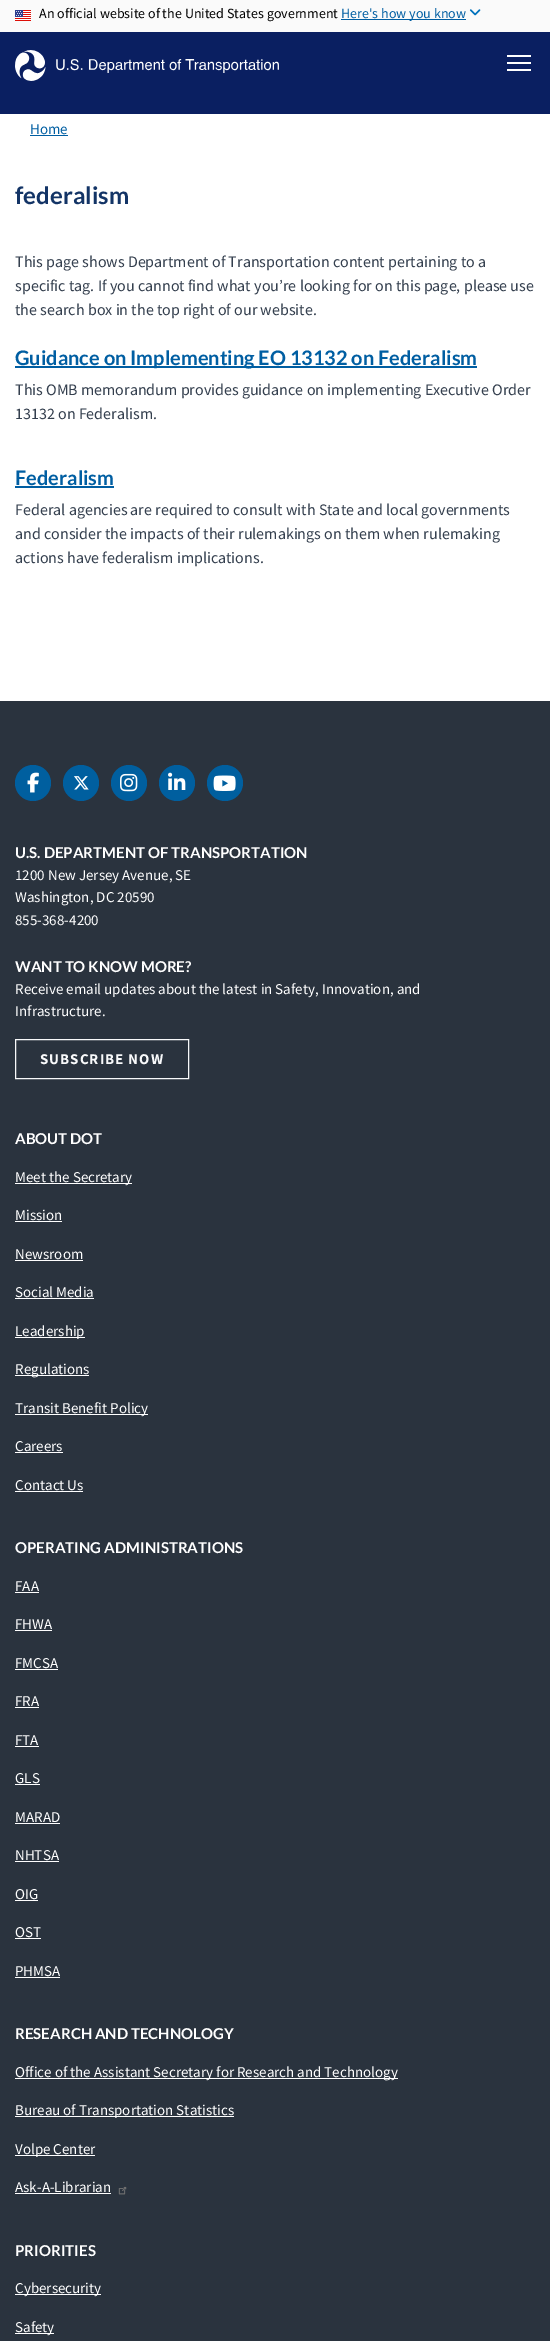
%!PS
<< /PageSize [550 2341] >> setpagedevice
/rgb { 3 { 255 div 3 1 roll } repeat setrgbcolor } def
/font { [ exch dup neg 0 0 3 -1 roll 0 0 ] selectfont } def
/circle { newpath 0 360 arc closepath } def
/picture { 5 dict begin { /h /w /y /x /name } { exch def } forall
  gsave x y translate w h scale
  w h 8 [w 0 0 h 0 0] name (r) file false 3 colorimage grestore end } def
0 2341 translate 1 -1 scale
4 setmiterlimit
42 51 62 rgb
0 0 550 2341 rectfill
250 250 250 rgb
0 0 550 32 rectfill
(img/1.rgb) 15 10 16 11 picture
0 94 162 rgb
341 19 125 1 rectfill
(img/2.rgb) 469 9 12 7 picture
10 31 97 rgb
0 32 550 82 rectfill
(img/3.rgb) 15 50 264 31 picture
[
  [507 55 24 2 255 255 255]
  [507 62 24 2 255 255 255]
  [507 69 24 2 255 255 255]
  [0 114 550 587 255 255 255]
  [30 135 38 1 0 94 162]
  [15 366 462 2 0 94 162]
  [15 486 99 2 0 94 162]
] { aload pop rgb rectfill } forall
0 95 159 rgb
33 783 18 circle fill
(img/4.rgb) 27 772 12 21 picture
81 783 18 circle fill
(img/5.rgb) 74 776 15 14 picture
129 783 18 circle fill
(img/6.rgb) 120 773 18 19 picture
177 783 18 circle fill
(img/7.rgb) 168 772 18 18 picture
225 783 18 circle fill
(img/8.rgb) 213 775 23 16 picture
248 249 250 rgb
15.5 1039.5 173 39 rectstroke
[
  [15 1183 117 1 255 255 255]
  [15 1221 47 1 255 255 255]
  [15 1260 68 1 255 255 255]
  [15 1298 79 1 255 255 255]
  [15 1337 70 1 255 255 255]
  [15 1375 74 1 255 255 255]
  [15 1414 133 1 255 255 255]
  [15 1452 48 1 255 255 255]
  [15 1491 68 1 255 255 255]
  [15 1592 24 1 255 255 255]
  [15 1630 37 1 255 255 255]
  [15 1669 43 1 255 255 255]
  [15 1707 24 1 255 255 255]
  [15 1746 24 1 255 255 255]
  [15 1784 25 1 255 255 255]
  [15 1823 45 1 255 255 255]
  [15 1861 44 1 255 255 255]
  [15 1900 23 1 255 255 255]
  [15 1938 26 1 255 255 255]
  [15 1977 45 1 255 255 255]
  [15 2078 383 1 255 255 255]
  [15 2116 219 1 255 255 255]
  [15 2155 80 1 255 255 255]
  [15 2193 96 1 255 255 255]
] { aload pop rgb rectfill } forall
(img/9.rgb) 118 2186 9 9 picture
15 2294 86 1 rectfill
15 2333 39 1 rectfill
/SourceSansPro-Regular 14 font
0 0 0 rgb
39 18 moveto (An official website of the United States government) show
0 94 162 rgb
341 18 moveto (Here's how you know) show
/SourceSansPro-Regular 15 font
30 134 moveto (Home) show
/Lato-Bold 24 font
19 52 102 rgb
15 204 moveto (federalism) show
/SourceSansPro-Regular 16 font
52 63 78 rgb
[
  [(This page shows Department of Transportation content pertaining to a) 15 267]
  [(specific tag. If you cannot find what you’re looking for on this page, please use) 15 291]
  [(the search box in the top right of our website.) 15 315]
] { aload pop moveto show } forall
/Lato-Bold 20 font
0 94 162 rgb
15 365 moveto (Guidance on Implementing EO 13132 on Federalism) show
/SourceSansPro-Regular 16 font
52 63 78 rgb
15 395 moveto (This OMB memorandum provides guidance on implementing Executive Order) show
15 419 moveto (13132 on Federalism.) show
/Lato-Bold 20 font
0 94 162 rgb
15 485 moveto (Federalism) show
/SourceSansPro-Regular 16 font
52 63 78 rgb
[
  [(Federal agencies are required to consult with State and local governments) 15 515]
  [(and consider the impacts of their rulemakings on them when rulemaking) 15 539]
  [(actions have federalism implications.) 15 563]
] { aload pop moveto show } forall
/Lato-Bold 15 font
255 255 255 rgb
15 858 moveto (U.S. DEPARTMENT OF TRANSPORTATION) show
/SourceSansPro-Regular 15 font
[
  [(1200 New Jersey Avenue, SE) 15 880]
  [(Washington, DC 20590) 15 902]
  [(855-368-4200) 15 925]
] { aload pop moveto show } forall
/Lato-Bold 15 font
15 972 moveto (WANT TO KNOW MORE?) show
/SourceSansPro-Regular 15 font
15 994 moveto (Receive email updates about the latest in Safety, Innovation, and) show
15 1016 moveto (Infrastructure.) show
/SourceSansPro-Bold 15 font
248 249 250 rgb
40 1064 moveto 1 0 (SUBSCRIBE NOW) ashow
/Lato-Bold 15 font
255 255 255 rgb
15 1144 moveto (ABOUT DOT) show
/SourceSansPro-Regular 15 font
[
  [(Meet the Secretary) 15 1182]
  [(Mission) 15 1220]
  [(Newsroom) 15 1259]
  [(Social Media) 15 1297]
  [(Leadership) 15 1336]
  [(Regulations) 15 1374]
  [(Transit Benefit Policy) 15 1413]
  [(Careers) 15 1451]
  [(Contact Us) 15 1490]
] { aload pop moveto show } forall
/Lato-Bold 15 font
15 1553 moveto (OPERATING ADMINISTRATIONS) show
/SourceSansPro-Regular 15 font
[
  [(FAA) 15 1591]
  [(FHWA) 15 1629]
  [(FMCSA) 15 1668]
  [(FRA) 15 1706]
  [(FTA) 15 1745]
  [(GLS) 15 1783]
  [(MARAD) 15 1822]
  [(NHTSA) 15 1860]
  [(OIG) 15 1899]
  [(OST) 15 1937]
  [(PHMSA) 15 1976]
] { aload pop moveto show } forall
/Lato-Bold 15 font
15 2039 moveto (RESEARCH AND TECHNOLOGY) show
/SourceSansPro-Regular 15 font
[
  [(Office of the Assistant Secretary for Research and Technology) 15 2077]
  [(Bureau of Transportation Statistics) 15 2115]
  [(Volpe Center) 15 2154]
  [(Ask-A-Librarian) 15 2192]
] { aload pop moveto show } forall
/Lato-Bold 15 font
15 2256 moveto (PRIORITIES) show
/SourceSansPro-Regular 15 font
15 2293 moveto (Cybersecurity) show
15 2332 moveto (Safety) show
showpage
